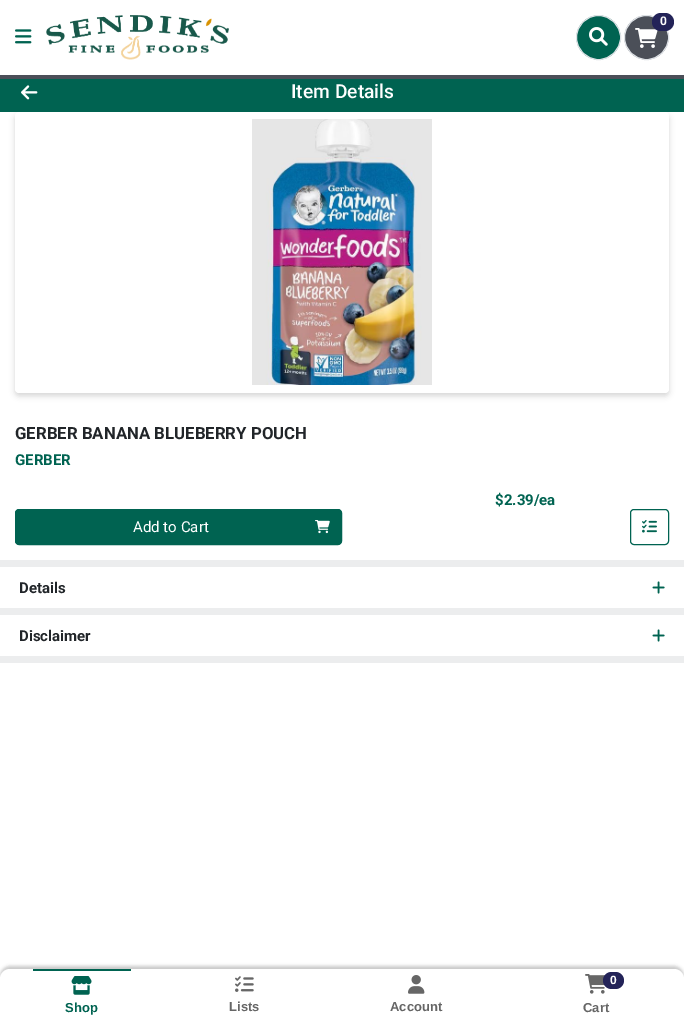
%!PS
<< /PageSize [684 1022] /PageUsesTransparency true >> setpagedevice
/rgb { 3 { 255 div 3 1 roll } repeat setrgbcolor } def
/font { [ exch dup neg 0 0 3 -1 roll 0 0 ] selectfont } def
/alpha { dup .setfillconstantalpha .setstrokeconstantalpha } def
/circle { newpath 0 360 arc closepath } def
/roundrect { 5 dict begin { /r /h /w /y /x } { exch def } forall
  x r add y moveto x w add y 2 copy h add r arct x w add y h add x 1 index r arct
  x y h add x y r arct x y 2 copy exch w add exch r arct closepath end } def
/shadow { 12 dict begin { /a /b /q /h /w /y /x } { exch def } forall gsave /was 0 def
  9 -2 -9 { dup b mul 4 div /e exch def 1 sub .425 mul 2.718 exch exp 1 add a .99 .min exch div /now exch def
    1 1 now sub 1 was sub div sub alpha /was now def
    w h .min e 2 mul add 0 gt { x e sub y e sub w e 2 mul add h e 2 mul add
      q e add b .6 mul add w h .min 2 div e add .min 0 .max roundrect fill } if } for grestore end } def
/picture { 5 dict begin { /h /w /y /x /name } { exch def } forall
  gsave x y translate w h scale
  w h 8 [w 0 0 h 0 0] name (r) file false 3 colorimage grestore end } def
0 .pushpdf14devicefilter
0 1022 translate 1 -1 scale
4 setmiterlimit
255 255 255 rgb
0 0 684 1022 rectfill
75 79 88 rgb
0 75 684 4 rectfill
(img/1.rgb) 46 15 183 45 picture
0 99 81 rgb
598.5 37.5 22 circle gsave fill grestore
222 226 230 rgb
stroke
(img/2.rgb) 589 27 19 19 picture
75 79 88 rgb
646.5 37.5 22 circle gsave fill grestore
222 226 230 rgb
stroke
(img/3.rgb) 635 28 23 20 picture
35 35 88 rgb
652 13 22 18 9 roundrect fill
(img/4.rgb) 15 29 17 15 picture
0 0 0 rgb
15 115 654 281 4 3 0.16 shadow
0 99 81 rgb
0 79 684 33 rectfill
(img/5.rgb) 21 85 17 15 picture
255 255 255 rgb
15 112 654 281 4 roundrect fill
(img/6.rgb) 252 119 180 266 picture
0 99 81 rgb
15.5 509.5 326 35 3.5 roundrect gsave fill grestore
stroke
(img/7.rgb) 315 520 15 14 picture
630.5 509.5 38 35 3.5 roundrect stroke
(img/8.rgb) 642 520 15 13 picture
236 237 238 rgb
0 560 684 7 rectfill
(img/9.rgb) 652 581 13 13 picture
0 608 684 55 rectfill
255 255 255 rgb
0 615 684 41 rectfill
(img/9.rgb) 652 629 13 13 picture
0 0 0 rgb
0 966 684 53 10 1.5 0.2 shadow
255 255 255 rgb
10 969 moveto 674 969 lineto 679.5 969 684 973.5 684 979 curveto 684 1022 lineto 0 1022 lineto 0 979 lineto 0 973.5 4.5 969 10 969 curveto closepath fill
0 99 81 rgb
33 969 98 2 rectfill
(img/10.rgb) 71 976 21 19 picture
(img/11.rgb) 235 976 19 16 picture
(img/12.rgb) 408 975 17 19 picture
(img/13.rgb) 585 974 20 20 picture
35 35 88 rgb
603 972 21 17 8.5 roundrect fill
/Roboto-Bold 12 font
255 255 255 rgb
660 25 moveto (0) show
/Roboto-Medium 19.25 font
291 98 moveto (Item Details) show
/Roboto-Bold 16.8 font
33 37 41 rgb
15 439 moveto (GERBER BANANA BLUEBERRY POUCH) show
/Roboto-Bold 15 font
0 99 81 rgb
15 465 moveto (GERBER) show
495 505 moveto ($2.39/ea) show
/Roboto-Regular 15 font
255 255 255 rgb
133 532 moveto (Add to Cart) show
/Roboto-Bold 15 font
33 37 41 rgb
19 593 moveto (Details) show
19 641 moveto (Disclaimer) show
/LiberationSans-Bold 13 font
0 99 81 rgb
65 1012 moveto (Shop) show
102 102 102 rgb
229 1011 moveto (Lists) show
390 1011 moveto (Account) show
/LiberationSans-Bold 12 font
255 255 255 rgb
610 984 moveto (0) show
/LiberationSans-Bold 13 font
102 102 102 rgb
583 1012 moveto (Cart) show
.poppdf14devicefilter showpage
